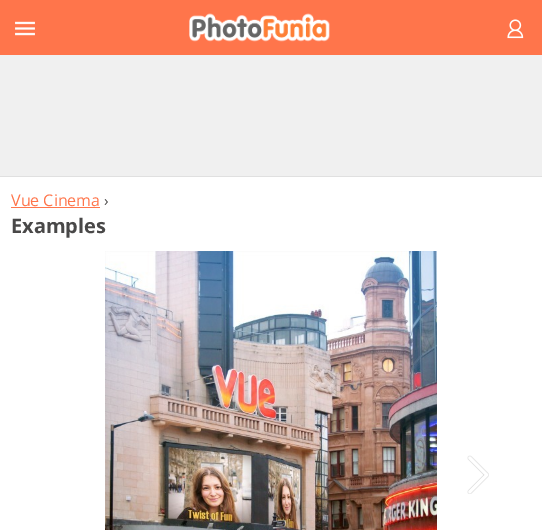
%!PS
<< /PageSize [542 530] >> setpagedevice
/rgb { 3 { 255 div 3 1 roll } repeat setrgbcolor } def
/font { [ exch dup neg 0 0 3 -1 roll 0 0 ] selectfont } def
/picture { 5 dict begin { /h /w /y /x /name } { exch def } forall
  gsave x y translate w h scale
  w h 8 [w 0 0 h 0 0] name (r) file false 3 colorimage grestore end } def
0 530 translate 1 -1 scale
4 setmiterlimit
255 255 255 rgb
0 0 542 530 rectfill
255 117 75 rgb
0 0 542 55 rectfill
(img/1.rgb) 15 21 20 15 picture
(img/2.rgb) 189 13 141 29 picture
(img/3.rgb) 507 19 17 20 picture
[
  [0 55 542 121 240 240 240]
  [0 176 542 1 224 224 224]
  [11 207 89 1 255 117 75]
] { aload pop rgb rectfill } forall
(img/4.rgb) 105 251 332 279 picture
(img/5.rgb) 467 455 22 39 picture
/OpenSans-Regular 16 font
11 206 moveto (Vue Cinema) show
/OpenSans-Regular 15 font
73 72 72 rgb
104 206 moveto (›) show
/OpenSans-Bold 20 font
11 233 moveto (Examples) show
showpage
